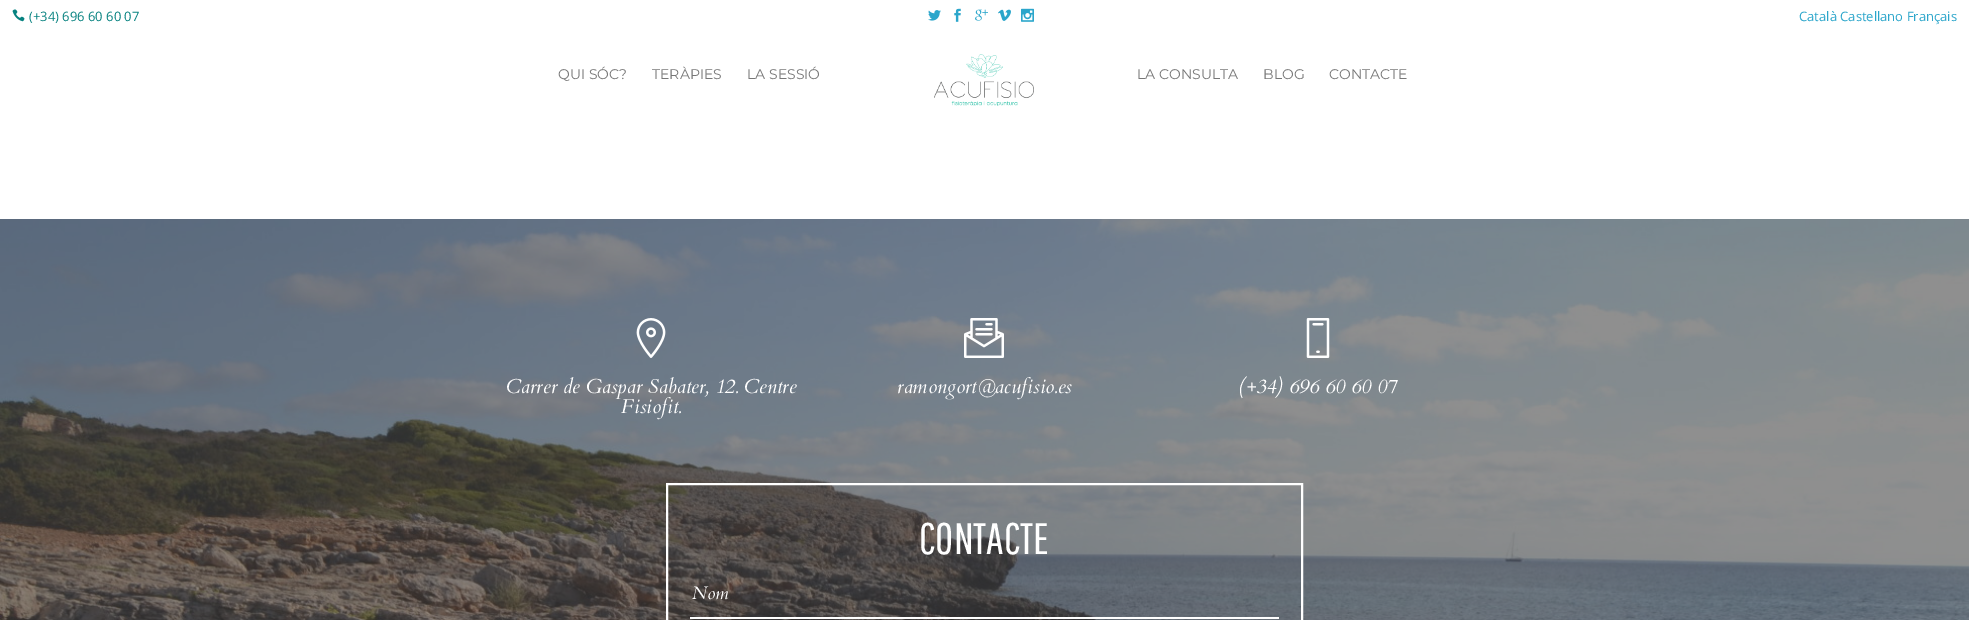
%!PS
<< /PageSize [1969 620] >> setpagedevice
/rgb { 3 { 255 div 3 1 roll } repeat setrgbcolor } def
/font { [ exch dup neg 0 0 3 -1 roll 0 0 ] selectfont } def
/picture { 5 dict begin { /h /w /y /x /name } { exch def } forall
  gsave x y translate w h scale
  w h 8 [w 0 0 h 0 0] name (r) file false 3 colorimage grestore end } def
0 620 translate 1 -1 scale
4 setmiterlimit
255 255 255 rgb
0 0 1969 620 rectfill
(img/1.rgb) 12 9 13 13 picture
(img/2.rgb) 928 10 13 11 picture
(img/3.rgb) 954 8 7 14 picture
(img/4.rgb) 975 9 13 12 picture
(img/5.rgb) 998 9 13 12 picture
(img/6.rgb) 1021 8 13 14 picture
(img/7.rgb) 934 54 100 52 picture
(img/8.rgb) 0 219 1969 401 picture
(img/9.rgb) 636 318 30 40 picture
(img/10.rgb) 964 318 40 40 picture
(img/11.rgb) 1306 318 24 40 picture
2 setlinewidth
667 484 635 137 rectstroke
690 617 589 2 rectfill
/OpenSans-Regular 13 font
7 130 128 rgb
29 21 moveto (\(+34\) 696 60 60 07) show
43 166 203 rgb
1799 21 moveto (Català Castellano Français) show
/Montserrat-Regular 14 font
119 119 119 rgb
[
  [(QUI SÓC?) 558 79]
  [(TERÀPIES) 652 79]
  [(LA SESSIÓ) 747 79]
  [(LA CONSULTA) 1137 79]
  [(BLOG) 1263 79]
  [(CONTACTE) 1329 79]
] { aload pop moveto show } forall
/Cardo-Italic 20 font
255 255 255 rgb
[
  [(Carrer de Gaspar Sabater, 12. Centre) 506 393]
  [(Fisiofit.) 621 413]
  [(ramongort@acufisio.es) 897 393]
  [(\(+34\) 696 60 60 07) 1238 393]
] { aload pop moveto show } forall
/PathwayGothicOne-Regular 44 font
919 554 moveto (CONTACTE) show
/Cardo-Italic 18 font
692 599 moveto (Nom) show
showpage
